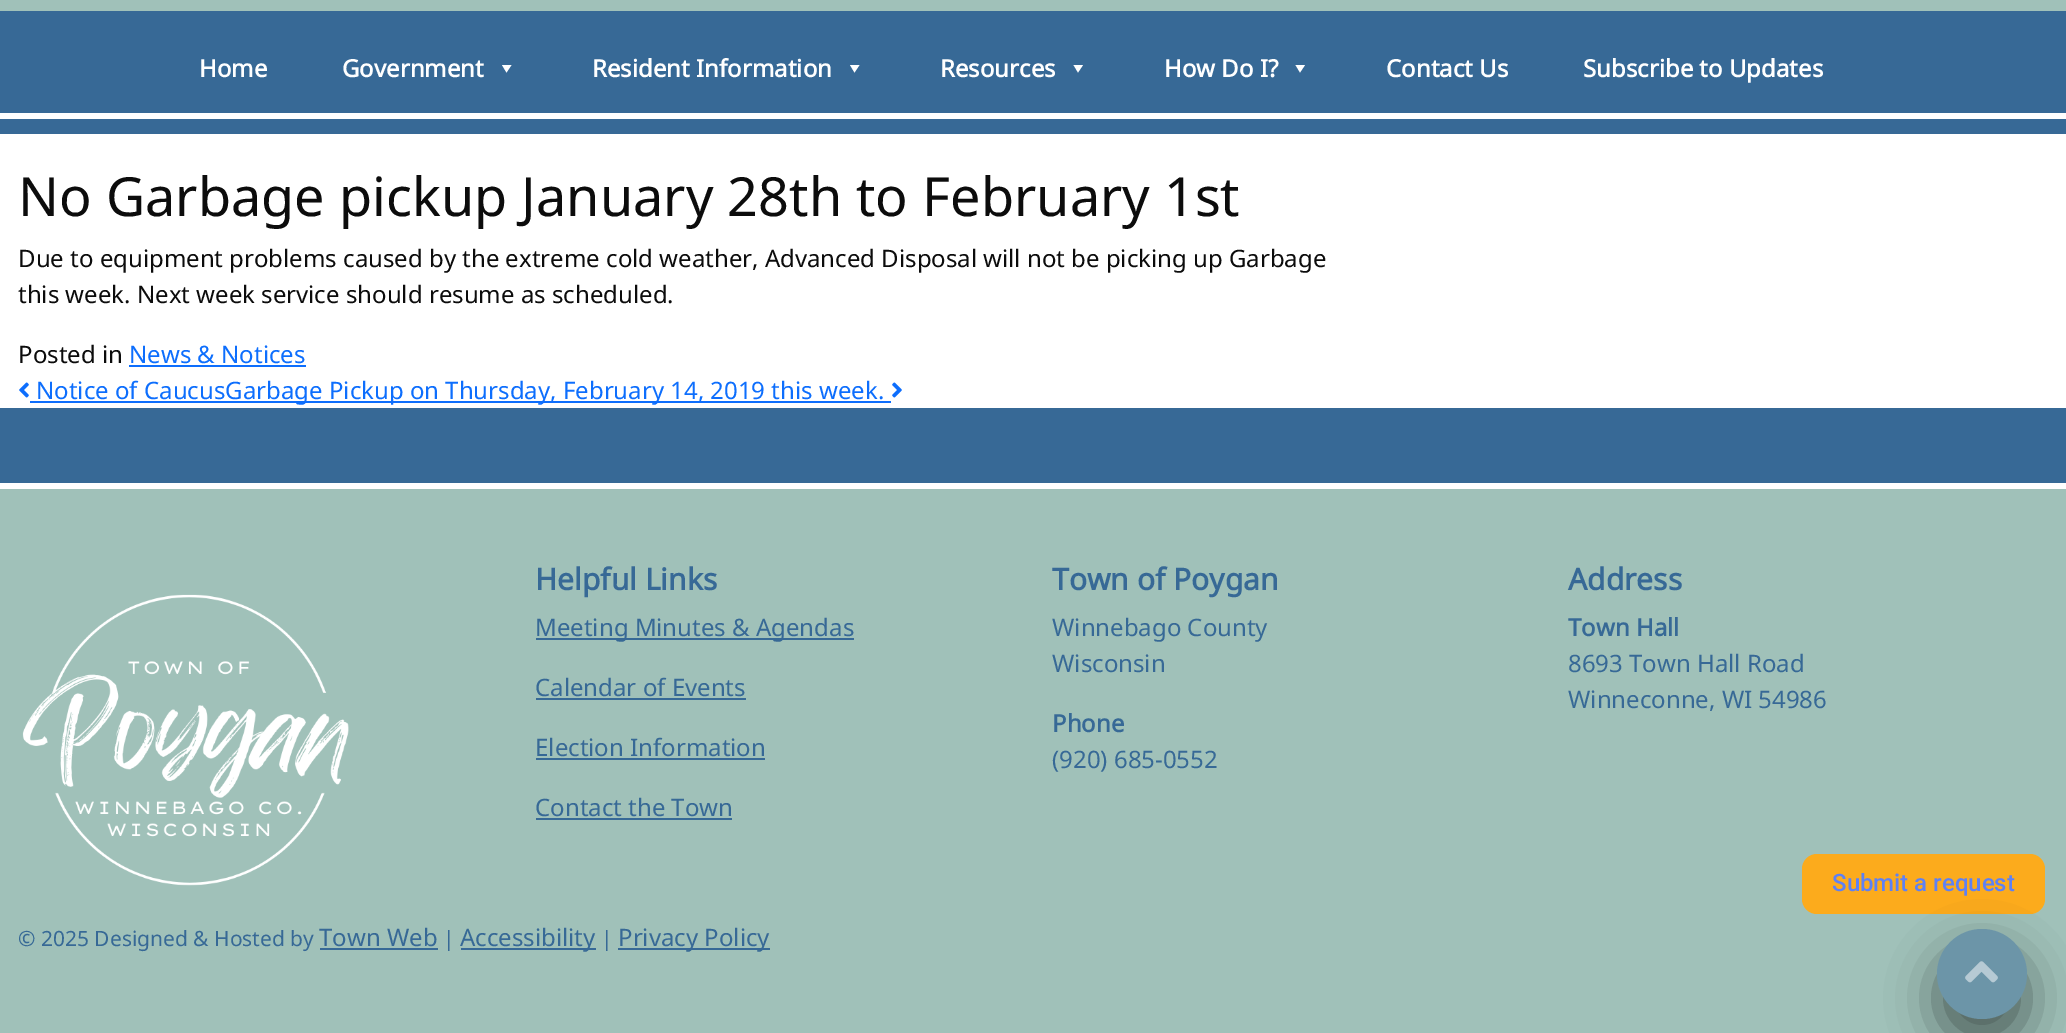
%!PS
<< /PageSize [2066 1033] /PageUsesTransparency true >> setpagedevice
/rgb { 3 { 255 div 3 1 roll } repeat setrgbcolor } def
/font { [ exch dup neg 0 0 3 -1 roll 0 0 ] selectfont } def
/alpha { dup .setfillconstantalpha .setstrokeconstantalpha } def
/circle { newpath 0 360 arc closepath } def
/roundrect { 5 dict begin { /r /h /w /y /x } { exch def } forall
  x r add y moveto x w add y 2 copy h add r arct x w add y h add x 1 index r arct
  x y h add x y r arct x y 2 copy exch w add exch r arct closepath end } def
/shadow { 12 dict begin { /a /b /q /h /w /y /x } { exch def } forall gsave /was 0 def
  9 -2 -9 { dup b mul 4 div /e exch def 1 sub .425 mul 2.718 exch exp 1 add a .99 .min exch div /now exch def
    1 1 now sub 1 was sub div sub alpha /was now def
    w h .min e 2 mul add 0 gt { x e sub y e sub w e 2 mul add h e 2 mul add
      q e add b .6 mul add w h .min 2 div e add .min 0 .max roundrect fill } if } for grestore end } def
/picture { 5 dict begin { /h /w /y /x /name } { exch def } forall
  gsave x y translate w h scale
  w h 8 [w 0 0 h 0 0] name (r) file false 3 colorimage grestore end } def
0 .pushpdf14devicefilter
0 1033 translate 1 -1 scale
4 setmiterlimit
255 255 255 rgb
0 0 2066 1033 rectfill
55 105 150 rgb
0 11 2066 123 rectfill
160 193 185 rgb
0 0 2066 11 rectfill
255 255 255 rgb
511.5 65 moveto 506.5 72.5 lineto 502 65 lineto closepath fill
859.5 65 moveto 854.5 72.5 lineto 850 65 lineto closepath fill
1083 65 moveto 1078 72.5 lineto 1073.5 65 lineto closepath fill
1305 65 moveto 1300 72.5 lineto 1295.5 65 lineto closepath fill
0 113 2066 6 rectfill
13 110 253 rgb
129 365 177 2 rectfill
(img/1.rgb) 19 382 10 16 picture
30 401 861 2 rectfill
(img/2.rgb) 892 382 10 16 picture
160 193 185 rgb
0 489 2066 544 rectfill
55 105 150 rgb
0 408 2066 75 rectfill
(img/3.rgb) 22 594 327 292 picture
[
  [536 638 318 2 55 105 150]
  [536 698 210 2 55 105 150]
  [536 758 229 2 55 105 150]
  [536 818 196 2 55 105 150]
  [320 948 118 2 55 105 150]
  [461 948 135 2 55 105 150]
  [618 948 152 2 55 105 150]
] { aload pop rgb rectfill } forall
252 171 28 rgb
1802 854 243 60 15 roundrect fill
0 0 0 rgb
1937 953 90 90 45 24 0.5 shadow
108 149 168 rgb
1982 974 45 circle fill
(img/4.rgb) 1965 961 33 22 picture
/NotoSans-Bold 24 font
255 255 255 rgb
[
  [(Home) 199 77]
  [(Government) 342 77]
  [(Resident Information) 592 77]
  [(Resources) 940 77]
  [(How Do I?) 1164 77]
  [(Contact Us) 1386 77]
  [(Subscribe to Updates) 1583 77]
] { aload pop moveto show } forall
/NotoSans-Regular 54 font
12 12 12 rgb
18 216 moveto (No Garbage pickup January 28th to February 1st) show
/NotoSans-Regular 24 font
[
  [(Due to equipment problems caused by the extreme cold weather, Advanced Disposal will not be picking up Garbage) 18 267]
  [(this week. Next week service should resume as scheduled.) 18 303]
  [(Posted in) 18 363]
] { aload pop moveto show } forall
13 110 253 rgb
129 363 moveto (News & Notices) show
36 399 moveto (Notice of CaucusGarbage Pickup on Thursday, February 14, 2019 this week.) show
/NotoSans-Bold 30 font
55 105 150 rgb
535 590 moveto (Helpful Links) show
/NotoSans-Regular 24 font
[
  [(Meeting Minutes & Agendas) 535 636]
  [(Calendar of Events) 535 696]
  [(Election Information) 535 756]
  [(Contact the Town) 535 816]
] { aload pop moveto show } forall
/NotoSans-Bold 30 font
1052 590 moveto (Town of Poygan) show
/NotoSans-Regular 24 font
1052 636 moveto (Winnebago County) show
1052 672 moveto (Wisconsin) show
/NotoSans-Bold 24 font
1052 732 moveto (Phone) show
/NotoSans-Regular 24 font
1052 768 moveto (\(920\) 685-0552) show
/NotoSans-Bold 30 font
1568 590 moveto (Address) show
/NotoSans-Bold 24 font
1568 636 moveto (Town Hall) show
/NotoSans-Regular 24 font
1568 672 moveto (8693 Town Hall Road) show
1568 708 moveto (Winneconne, WI 54986) show
/NotoSans-Regular 21 font
18 946 moveto (© 2025 Designed & Hosted by) show
/NotoSans-Regular 24 font
319 946 moveto (Town Web) show
/NotoSans-Regular 21 font
443 946 moveto (|) show
/NotoSans-Regular 24 font
460 946 moveto (Accessibility) show
/NotoSans-Regular 21 font
601 946 moveto (|) show
/NotoSans-Regular 24 font
618 946 moveto (Privacy Policy) show
/Roboto-Medium 24 font
94 129 244 rgb
1832 891 moveto (Submit a request) show
.poppdf14devicefilter showpage
